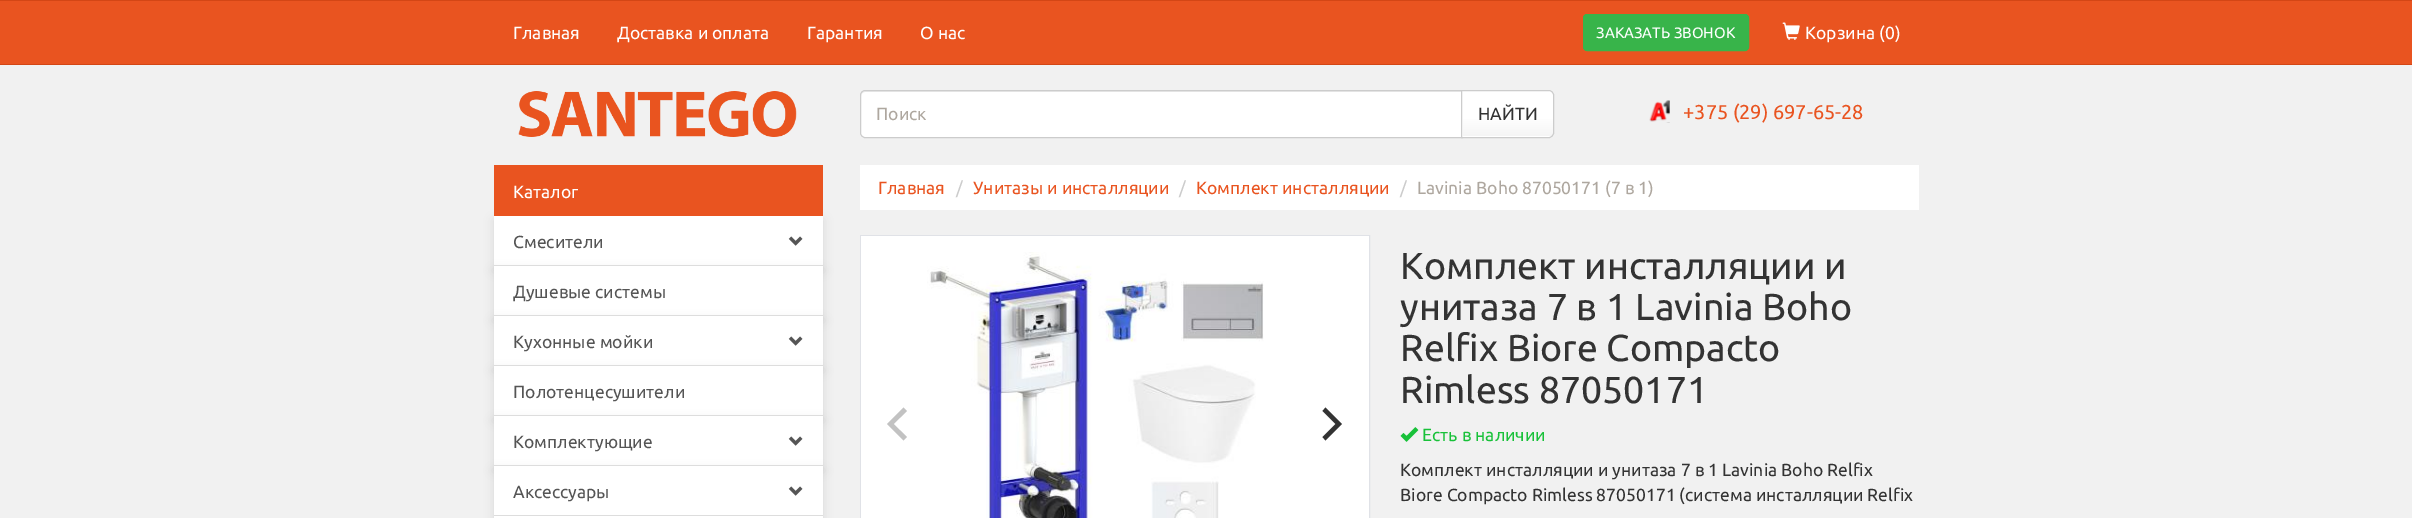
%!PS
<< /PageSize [2412 518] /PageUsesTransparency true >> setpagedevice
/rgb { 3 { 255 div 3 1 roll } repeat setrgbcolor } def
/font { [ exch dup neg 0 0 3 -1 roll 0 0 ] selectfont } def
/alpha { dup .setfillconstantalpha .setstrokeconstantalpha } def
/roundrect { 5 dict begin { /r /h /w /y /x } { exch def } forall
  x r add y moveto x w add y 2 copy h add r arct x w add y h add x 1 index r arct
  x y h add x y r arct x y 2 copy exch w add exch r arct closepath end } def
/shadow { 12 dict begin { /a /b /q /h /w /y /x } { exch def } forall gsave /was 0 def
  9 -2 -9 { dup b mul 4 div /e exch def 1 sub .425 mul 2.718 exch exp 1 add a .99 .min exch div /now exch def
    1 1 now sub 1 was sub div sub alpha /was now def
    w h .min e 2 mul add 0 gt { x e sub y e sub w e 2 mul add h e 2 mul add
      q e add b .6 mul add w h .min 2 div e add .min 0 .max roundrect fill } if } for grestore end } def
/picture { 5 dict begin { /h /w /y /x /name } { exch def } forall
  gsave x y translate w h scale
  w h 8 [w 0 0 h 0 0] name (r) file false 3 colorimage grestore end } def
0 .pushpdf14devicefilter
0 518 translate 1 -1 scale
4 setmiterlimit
241 241 241 rgb
0 0 2412 518 rectfill
[
  [0 1 2412 63 233 84 32]
  [0 0 2412 1 211 70 21]
  [0 64 2412 1 211 70 21]
] { aload pop rgb rectfill } forall
56 180 74 rgb
1583.5 14.5 165 36 3.5 roundrect gsave fill grestore
stroke
(img/1.rgb) 1782 22 18 18 picture
(img/2.rgb) 518 91 279 46 picture
255 255 255 rgb
865 90 moveto 1463 90 lineto 1463 138 lineto 865 138 lineto 862 138 860 136 860 133 curveto 860 95 lineto 860 92 862 90 865 90 curveto closepath fill
236 236 236 rgb
865 92 moveto 1461 92 lineto 1461 91 lineto 865 91 lineto 862 91 861 93 861 96 curveto 861 94 863 92 865 92 curveto closepath fill
204 204 204 rgb
865 90.5 moveto 1462.5 90.5 lineto 1462.5 137.5 lineto 865 137.5 lineto 862.5 137.5 860.5 135.5 860.5 133 curveto 860.5 95 lineto 860.5 92.5 862.5 90.5 865 90.5 curveto closepath stroke
255 255 255 rgb
1461 90 moveto 1549 90 lineto 1552 90 1554 92 1554 95 curveto 1554 133 lineto 1554 136 1552 138 1549 138 curveto 1461 138 lineto closepath fill
gsave 1463 91 moveto 1553 91 lineto 1553 136 lineto 1463 136 lineto closepath clip newpath
<< /ShadingType 2 /ColorSpace /DeviceRGB /Coords [1508 91 1508 136] /Extend [true true] /Function << /FunctionType 3 /Domain [0 1] /Functions [<< /FunctionType 2 /Domain [0 1] /C0 [1 1 1] /C1 [1 1 1] /N 1 >> << /FunctionType 2 /Domain [0 1] /C0 [1 1 1] /C1 [0.961 0.961 0.961] /N 1 >>] /Bounds [0.6] /Encode [0 1 0 1] >> >> shfill grestore
204 204 204 rgb
1461.5 90.5 moveto 1549 90.5 lineto 1551.5 90.5 1553.5 92.5 1553.5 95 curveto 1553.5 133 lineto 1553.5 135.5 1551.5 137.5 1549 137.5 curveto 1461.5 137.5 lineto closepath stroke
(img/3.rgb) 1649 100 21 23 picture
0 0 0 rgb
494 220 329 51 0 5 0.1 shadow
233 84 32 rgb
494 165 329 51 rectfill
255 255 255 rgb
494 216 329 49 rectfill
(img/4.rgb) 788 236 15 10 picture
0 0 0 rgb
494 270 329 51 0 5 0.1 shadow
255 255 255 rgb
494 266 329 49 rectfill
221 221 221 rgb
494 265 329 1 rectfill
0 0 0 rgb
494 320 329 51 0 5 0.1 shadow
255 255 255 rgb
494 316 329 49 rectfill
221 221 221 rgb
494 315 329 1 rectfill
(img/4.rgb) 788 336 15 10 picture
0 0 0 rgb
494 370 329 51 0 5 0.1 shadow
255 255 255 rgb
494 366 329 49 rectfill
221 221 221 rgb
494 365 329 1 rectfill
0 0 0 rgb
494 420 329 51 0 5 0.1 shadow
255 255 255 rgb
494 416 329 49 rectfill
221 221 221 rgb
494 415 329 1 rectfill
(img/4.rgb) 788 436 15 10 picture
0 0 0 rgb
494 470 329 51 0 5 0.1 shadow
255 255 255 rgb
494 466 329 49 rectfill
221 221 221 rgb
494 465 329 1 rectfill
(img/4.rgb) 788 486 15 10 picture
[
  [494 516 329 2 255 255 255]
  [494 515 329 1 221 221 221]
  [860 165 1059 45 255 255 255]
] { aload pop rgb rectfill } forall
224 226 231 rgb
860.5 235.5 509 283 rectstroke
255 255 255 rgb
861 236 508 282 rectfill
(img/5.rgb) 927 252 337 266 picture
194 194 194 rgb
887 424 moveto 903.5 440.5 lineto 907 437 lineto 893.5 424 lineto 907 411 lineto 903.5 407.5 lineto closepath fill
51 51 51 rgb
1342 424 moveto 1325.5 407.5 lineto 1322.5 411 lineto 1335.5 424 lineto 1322.5 437 lineto 1325.5 440.5 lineto closepath fill
(img/6.rgb) 1400 427 19 15 picture
/Ubuntu-Regular 17.5 font
255 255 255 rgb
[
  [(Главная) 513 39]
  [(Доставка и оплата) 617 39]
  [(Гарантия) 807 39]
  [(О нас) 920 39]
] { aload pop moveto show } forall
/Ubuntu-Regular 15 font
1596 38 moveto (ЗАКАЗАТЬ ЗВОНОК) show
/Ubuntu-Regular 17.5 font
1805 39 moveto (Корзина \(0\)) show
174 167 159 rgb
876 120 moveto (Поиск) show
51 51 51 rgb
1478 120 moveto (НАЙТИ) show
/Ubuntu-Regular 20 font
233 84 32 rgb
1683 119 moveto (+375 \(29\) 697-65-28) show
/Ubuntu-Regular 17.5 font
255 255 255 rgb
513 198 moveto (Каталог) show
85 85 85 rgb
[
  [(Смесители) 513 248]
  [(Душевые системы) 513 298]
  [(Кухонные мойки) 513 348]
  [(Полотенцесушители) 513 398]
  [(Комплектующие) 513 448]
  [(Аксессуары) 513 498]
] { aload pop moveto show } forall
233 84 32 rgb
878 194 moveto (Главная) show
204 204 204 rgb
956 194 moveto (/) show
233 84 32 rgb
973 194 moveto (Унитазы и инсталляции) show
204 204 204 rgb
1179 194 moveto (/) show
233 84 32 rgb
1196 194 moveto (Комплект инсталляции) show
204 204 204 rgb
1400 194 moveto (/) show
174 167 159 rgb
1417 194 moveto (Lavinia Boho 87050171 \(7 в 1\)) show
/Ubuntu-Regular 37.5 font
51 51 51 rgb
[
  [(Комплект инсталляции и) 1400 279]
  [(унитаза 7 в 1 Lavinia Boho) 1400 320]
  [(Relfix Biore Compacto) 1400 361]
  [(Rimless 87050171) 1400 403]
] { aload pop moveto show } forall
/Ubuntu-Regular 17.5 font
24 193 57 rgb
1422 441 moveto (Есть в наличии) show
51 51 51 rgb
1400 476 moveto (Комплект инсталляции и унитаза 7 в 1 Lavinia Boho Relfix) show
1400 501 moveto (Biore Compacto Rimless 87050171 \(система инсталляции Relfix) show
.poppdf14devicefilter showpage
